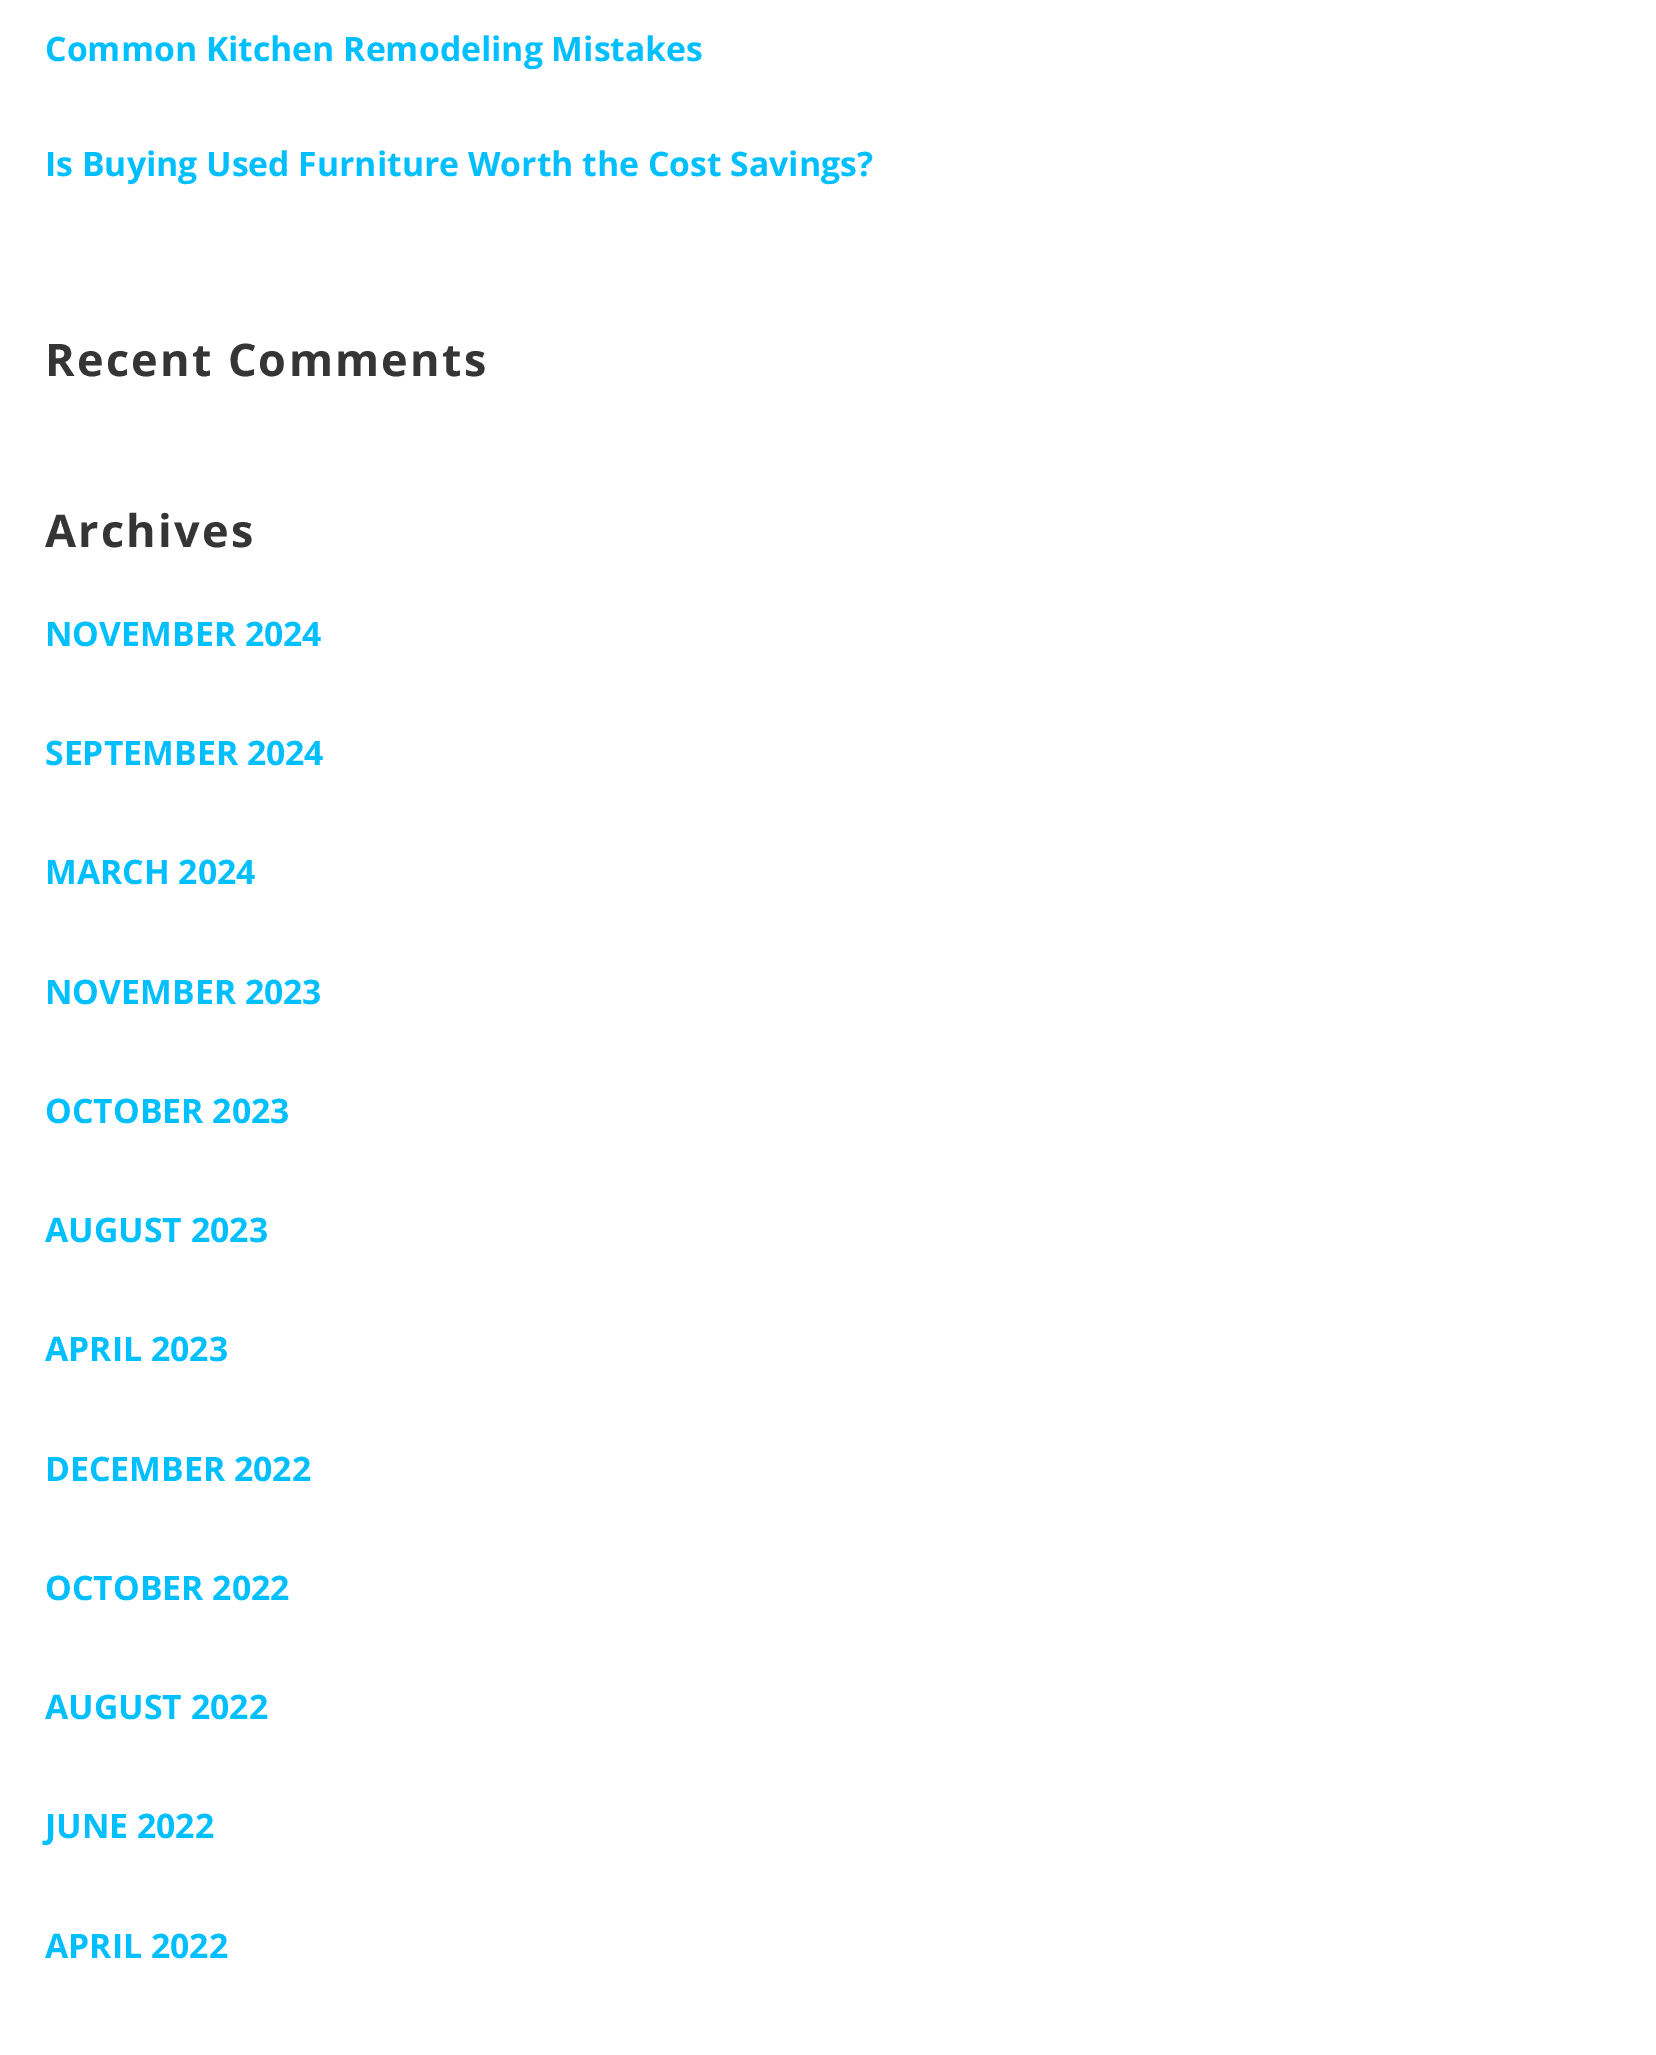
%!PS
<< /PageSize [1656 2055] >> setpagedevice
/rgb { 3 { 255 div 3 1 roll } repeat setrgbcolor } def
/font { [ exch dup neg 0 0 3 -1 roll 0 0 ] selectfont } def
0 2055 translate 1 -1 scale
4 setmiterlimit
255 255 255 rgb
0 0 1656 2055 rectfill
/OpenSans-Bold 33.75 font
0 191 255 rgb
45 61 moveto (Common Kitchen Remodeling Mistakes) show
45 176 moveto (Is Buying Used Furniture Worth the Cost Savings?) show
/OpenSans-Bold 45 font
53 53 53 rgb
45 376 moveto 2.25 0 (Recent Comments) ashow
45 547 moveto 2.25 0 (Archives) ashow
/OpenSans-Bold 33.75 font
0 191 255 rgb
[
  [(NOVEMBER 2024) 45 646]
  [(SEPTEMBER 2024) 45 765]
  [(MARCH 2024) 45 884]
  [(NOVEMBER 2023) 45 1004]
  [(OCTOBER 2023) 45 1123]
  [(AUGUST 2023) 45 1242]
  [(APRIL 2023) 45 1361]
  [(DECEMBER 2022) 45 1481]
  [(OCTOBER 2022) 45 1600]
  [(AUGUST 2022) 45 1719]
  [(JUNE 2022) 45 1838]
  [(APRIL 2022) 45 1958]
] { aload pop moveto show } forall
showpage
